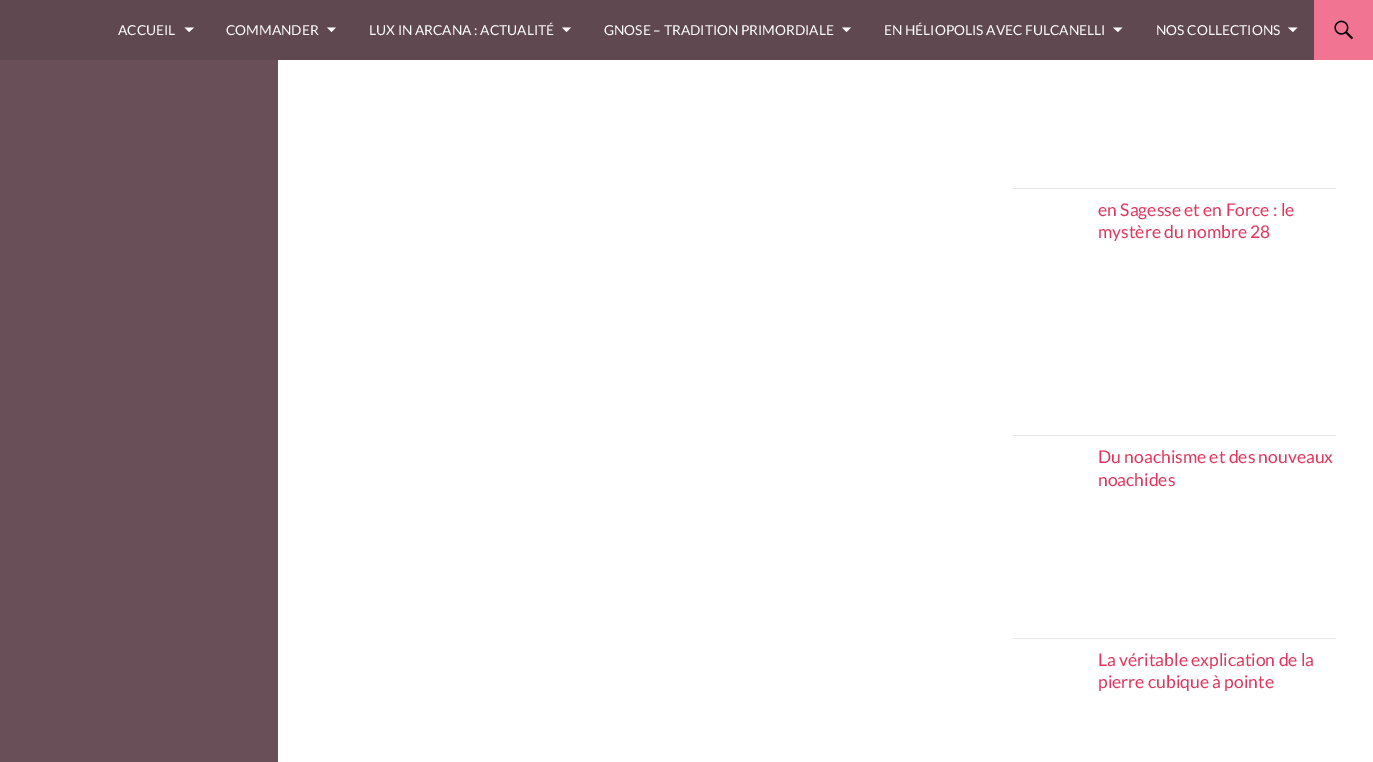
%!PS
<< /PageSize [1373 762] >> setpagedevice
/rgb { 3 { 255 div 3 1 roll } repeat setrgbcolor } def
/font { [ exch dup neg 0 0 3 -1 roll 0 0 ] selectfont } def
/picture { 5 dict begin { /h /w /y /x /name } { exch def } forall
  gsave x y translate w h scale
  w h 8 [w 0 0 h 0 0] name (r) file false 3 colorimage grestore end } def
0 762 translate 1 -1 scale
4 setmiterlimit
255 255 255 rgb
0 0 1373 762 rectfill
95 72 79 rgb
0 0 1314 60 rectfill
255 255 255 rgb
184.5 27.5 moveto 194 27.5 lineto 189 32 lineto closepath fill
327 27.5 moveto 336 27.5 lineto 331.5 32 lineto closepath fill
562 27.5 moveto 571 27.5 lineto 566.5 32 lineto closepath fill
842 27.5 moveto 851 27.5 lineto 846.5 32 lineto closepath fill
1113 27.5 moveto 1122.5 27.5 lineto 1118 32 lineto closepath fill
1288 27.5 moveto 1297.5 27.5 lineto 1293 32 lineto closepath fill
241 116 146 rgb
1314 0 59 60 rectfill
(img/1.rgb) 1334 20 19 20 picture
[
  [0 60 278 702 105 79 87]
  [1013 188 323 1 230 230 230]
  [1013 435 323 1 230 230 230]
  [1013 638 323 1 230 230 230]
] { aload pop rgb rectfill } forall
/Lato-Regular 13.75 font
255 255 255 rgb
[
  [(ACCUEIL) 118 35]
  [(COMMANDER) 226 35]
  [(LUX IN ARCANA : ACTUALITÉ) 369 35]
  [(GNOSE – TRADITION PRIMORDIALE) 604 35]
  [(EN HÉLIOPOLIS AVEC FULCANELLI) 884 35]
  [(NOS COLLECTIONS) 1156 35]
] { aload pop moveto show } forall
/Lato-Regular 17.5 font
225 55 94 rgb
[
  [(en Sagesse et en Force : le) 1098 216]
  [(mystère du nombre 28) 1098 238]
  [(Du noachisme et des nouveaux) 1098 463]
  [(noachides) 1098 486]
  [(La véritable explication de la) 1098 666]
  [(pierre cubique à pointe) 1098 688]
] { aload pop moveto show } forall
showpage
